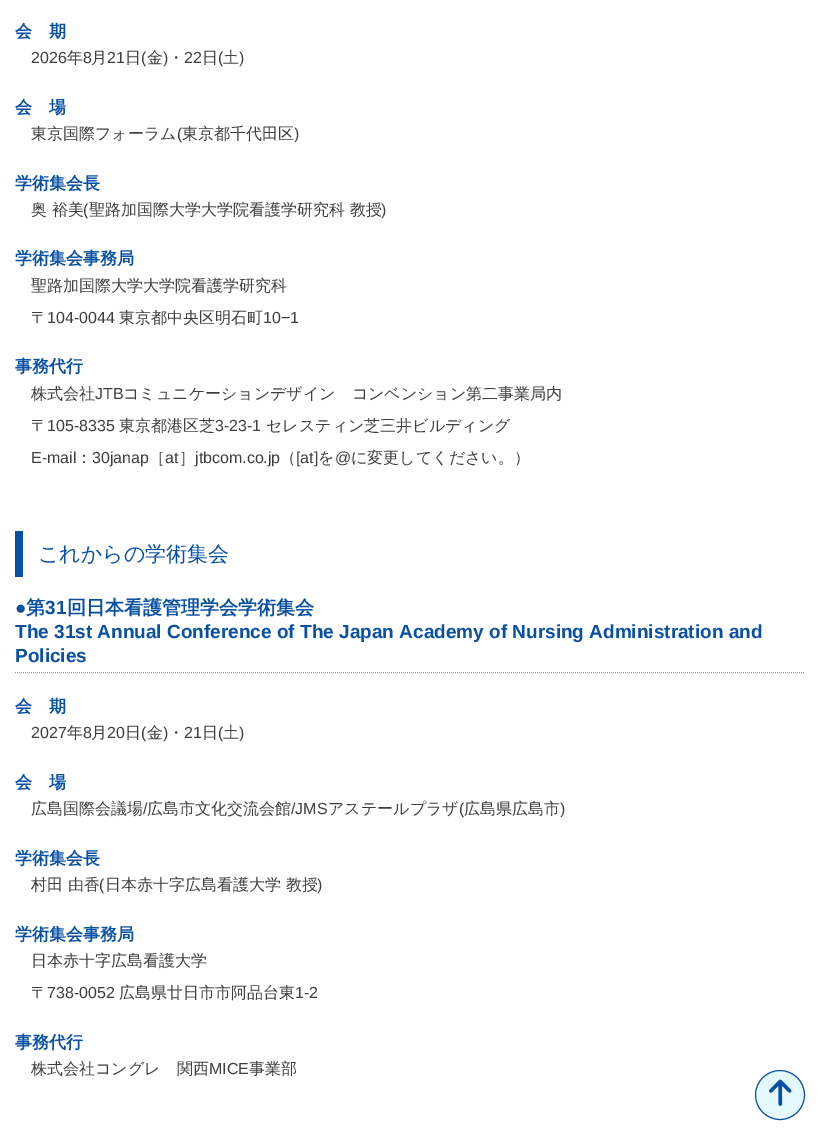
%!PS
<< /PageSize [820 1140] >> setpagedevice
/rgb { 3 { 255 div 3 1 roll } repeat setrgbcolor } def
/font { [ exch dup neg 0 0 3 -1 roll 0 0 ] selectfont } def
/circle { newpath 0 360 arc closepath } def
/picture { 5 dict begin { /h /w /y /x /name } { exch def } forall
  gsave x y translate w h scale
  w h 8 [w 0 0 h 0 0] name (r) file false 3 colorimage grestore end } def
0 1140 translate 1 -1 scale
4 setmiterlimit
255 255 255 rgb
0 0 820 1140 rectfill
8 80 164 rgb
15 531 8 46 rectfill
219 152 9 rgb
[1 1] 0 setdash
15 672.5 moveto 805 672.5 lineto stroke
227 249 255 rgb
780 1095 24.5 circle gsave fill grestore
8 80 164 rgb
[] 0 setdash
stroke
(img/1.rgb) 769 1079 23 27 picture
/WenQuanYiZenHei-Bold 17 font
15 37 moveto (会　期) show
/LiberationSans-Regular 16 font
62 62 62 rgb
31 63 moveto (2026) show
/WenQuanYiZenHei-Medium 16 font
67 63 moveto (年) show
/LiberationSans-Regular 16 font
83 63 moveto (8) show
/WenQuanYiZenHei-Medium 16 font
91 63 moveto (月) show
/LiberationSans-Regular 16 font
107 63 moveto (21) show
/WenQuanYiZenHei-Medium 16 font
125 63 moveto (日) show
/LiberationSans-Regular 16 font
141 63 moveto (\() show
/WenQuanYiZenHei-Medium 16 font
147 63 moveto (金) show
/LiberationSans-Regular 16 font
163 63 moveto (\)) show
/WenQuanYiZenHei-Medium 16 font
168 63 moveto (・) show
/LiberationSans-Regular 16 font
184 63 moveto (22) show
/WenQuanYiZenHei-Medium 16 font
202 63 moveto (日) show
/LiberationSans-Regular 16 font
218 63 moveto (\() show
/WenQuanYiZenHei-Medium 16 font
223 63 moveto (土) show
/LiberationSans-Regular 16 font
239 63 moveto (\)) show
/WenQuanYiZenHei-Bold 17 font
8 80 164 rgb
15 113 moveto (会　場) show
/WenQuanYiZenHei-Medium 16 font
62 62 62 rgb
31 139 moveto (東京国際フォーラム) show
/LiberationSans-Regular 16 font
177 139 moveto (\() show
/WenQuanYiZenHei-Medium 16 font
182 139 moveto (東京都千代田区) show
/LiberationSans-Regular 16 font
294 139 moveto (\)) show
/WenQuanYiZenHei-Bold 17 font
8 80 164 rgb
15 189 moveto (学術集会長) show
/WenQuanYiZenHei-Medium 16 font
62 62 62 rgb
31 215 moveto (奥 裕美) show
/LiberationSans-Regular 16 font
83 215 moveto (\() show
/WenQuanYiZenHei-Medium 16 font
89 215 moveto (聖路加国際大学大学院看護学研究科 教授) show
/LiberationSans-Regular 16 font
381 215 moveto (\)) show
/WenQuanYiZenHei-Bold 17 font
8 80 164 rgb
15 264 moveto (学術集会事務局) show
/WenQuanYiZenHei-Medium 16 font
62 62 62 rgb
31 291 moveto (聖路加国際大学大学院看護学研究科) show
31 323 moveto (〒) show
/LiberationSans-Regular 16 font
47 323 moveto (104-0044) show
/WenQuanYiZenHei-Medium 16 font
119 323 moveto (東京都中央区明石町) show
/LiberationSans-Regular 16 font
263 323 moveto (10−1) show
/WenQuanYiZenHei-Bold 17 font
8 80 164 rgb
15 372 moveto (事務代行) show
/WenQuanYiZenHei-Medium 16 font
62 62 62 rgb
31 399 moveto (株式会社) show
/LiberationSans-Regular 16 font
95 399 moveto (JTB) show
/WenQuanYiZenHei-Medium 16 font
123 399 moveto (コミュニケーションデザイン　コンベンション第二事業局内) show
31 431 moveto (〒) show
/LiberationSans-Regular 16 font
47 431 moveto (105-8335) show
/WenQuanYiZenHei-Medium 16 font
119 431 moveto (東京都港区芝) show
/LiberationSans-Regular 16 font
215 431 moveto (3-23-1) show
/WenQuanYiZenHei-Medium 16 font
266 431 moveto (セレスティン芝三井ビルディング) show
/LiberationSans-Regular 16 font
31 463 moveto (E-mail) show
/WenQuanYiZenHei-Medium 16 font
76 463 moveto (：) show
/LiberationSans-Regular 16 font
92 463 moveto (30janap) show
/WenQuanYiZenHei-Medium 16 font
149 463 moveto (［) show
/LiberationSans-Regular 16 font
165 463 moveto (at) show
/WenQuanYiZenHei-Medium 16 font
179 463 moveto (］) show
/LiberationSans-Regular 16 font
195 463 moveto (jtbcom.co.jp) show
/WenQuanYiZenHei-Medium 16 font
280 463 moveto (（) show
/LiberationSans-Regular 16 font
296 463 moveto ([at]) show
/WenQuanYiZenHei-Medium 16 font
318 463 moveto (を) show
/LiberationSans-Regular 16 font
335 463 moveto (@) show
/WenQuanYiZenHei-Medium 16 font
351 463 moveto (に変更してください。）) show
/WenQuanYiZenHei-Medium 21 font
8 80 164 rgb
38 561 moveto (これからの学術集会) show
/LiberationSans-Bold 19 font
15 614 moveto (●) show
/WenQuanYiZenHei-Bold 19 font
26 614 moveto (第) show
/LiberationSans-Bold 19 font
45 614 moveto (31) show
/WenQuanYiZenHei-Bold 19 font
67 614 moveto (回日本看護管理学会学術集会) show
/LiberationSans-Bold 19 font
15 638 moveto (The 31st Annual Conference of The Japan Academy of Nursing Administration and) show
15 662 moveto (Policies) show
/WenQuanYiZenHei-Bold 17 font
15 712 moveto (会　期) show
/LiberationSans-Regular 16 font
62 62 62 rgb
31 738 moveto (2027) show
/WenQuanYiZenHei-Medium 16 font
67 738 moveto (年) show
/LiberationSans-Regular 16 font
83 738 moveto (8) show
/WenQuanYiZenHei-Medium 16 font
91 738 moveto (月) show
/LiberationSans-Regular 16 font
107 738 moveto (20) show
/WenQuanYiZenHei-Medium 16 font
125 738 moveto (日) show
/LiberationSans-Regular 16 font
141 738 moveto (\() show
/WenQuanYiZenHei-Medium 16 font
147 738 moveto (金) show
/LiberationSans-Regular 16 font
163 738 moveto (\)) show
/WenQuanYiZenHei-Medium 16 font
168 738 moveto (・) show
/LiberationSans-Regular 16 font
184 738 moveto (21) show
/WenQuanYiZenHei-Medium 16 font
202 738 moveto (日) show
/LiberationSans-Regular 16 font
218 738 moveto (\() show
/WenQuanYiZenHei-Medium 16 font
223 738 moveto (土) show
/LiberationSans-Regular 16 font
239 738 moveto (\)) show
/WenQuanYiZenHei-Bold 17 font
8 80 164 rgb
15 788 moveto (会　場) show
/WenQuanYiZenHei-Medium 16 font
62 62 62 rgb
31 814 moveto (広島国際会議場) show
/LiberationSans-Regular 16 font
143 814 moveto (/) show
/WenQuanYiZenHei-Medium 16 font
147 814 moveto (広島市文化交流会館) show
/LiberationSans-Regular 16 font
291 814 moveto (/JMS) show
/WenQuanYiZenHei-Medium 16 font
328 814 moveto (アステールプラザ) show
/LiberationSans-Regular 16 font
459 814 moveto (\() show
/WenQuanYiZenHei-Medium 16 font
464 814 moveto (広島県広島市) show
/LiberationSans-Regular 16 font
560 814 moveto (\)) show
/WenQuanYiZenHei-Bold 17 font
8 80 164 rgb
15 864 moveto (学術集会長) show
/WenQuanYiZenHei-Medium 16 font
62 62 62 rgb
31 890 moveto (村田 由香) show
/LiberationSans-Regular 16 font
99 890 moveto (\() show
/WenQuanYiZenHei-Medium 16 font
105 890 moveto (日本赤十字広島看護大学 教授) show
/LiberationSans-Regular 16 font
317 890 moveto (\)) show
/WenQuanYiZenHei-Bold 17 font
8 80 164 rgb
15 940 moveto (学術集会事務局) show
/WenQuanYiZenHei-Medium 16 font
62 62 62 rgb
31 966 moveto (日本赤十字広島看護大学) show
31 998 moveto (〒) show
/LiberationSans-Regular 16 font
47 998 moveto (738-0052) show
/WenQuanYiZenHei-Medium 16 font
119 998 moveto (広島県廿日市市阿品台東) show
/LiberationSans-Regular 16 font
295 998 moveto (1-2) show
/WenQuanYiZenHei-Bold 17 font
8 80 164 rgb
15 1048 moveto (事務代行) show
/WenQuanYiZenHei-Medium 16 font
62 62 62 rgb
31 1074 moveto (株式会社コングレ　関西) show
/LiberationSans-Regular 16 font
209 1074 moveto (MICE) show
/WenQuanYiZenHei-Medium 16 font
249 1074 moveto (事業部) show
showpage
